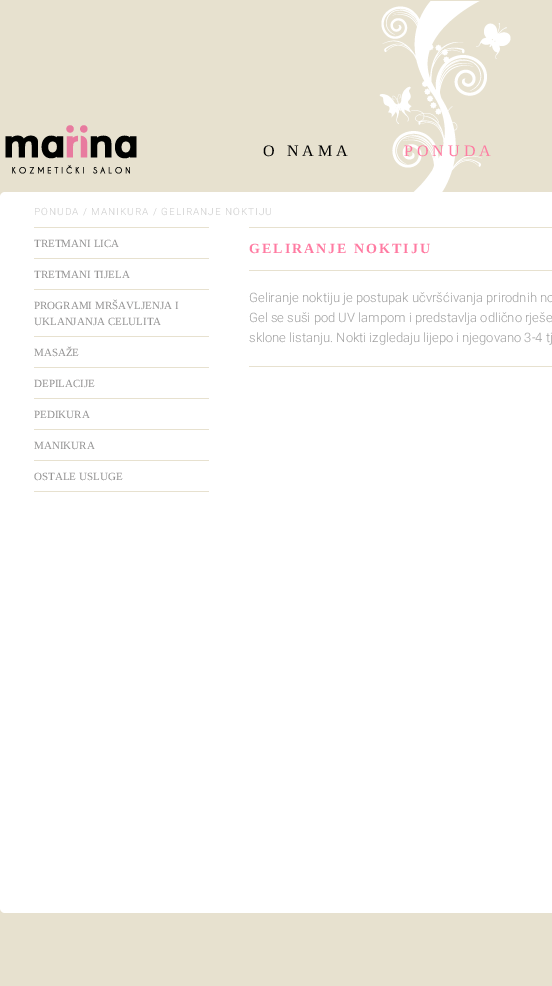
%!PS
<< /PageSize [552 986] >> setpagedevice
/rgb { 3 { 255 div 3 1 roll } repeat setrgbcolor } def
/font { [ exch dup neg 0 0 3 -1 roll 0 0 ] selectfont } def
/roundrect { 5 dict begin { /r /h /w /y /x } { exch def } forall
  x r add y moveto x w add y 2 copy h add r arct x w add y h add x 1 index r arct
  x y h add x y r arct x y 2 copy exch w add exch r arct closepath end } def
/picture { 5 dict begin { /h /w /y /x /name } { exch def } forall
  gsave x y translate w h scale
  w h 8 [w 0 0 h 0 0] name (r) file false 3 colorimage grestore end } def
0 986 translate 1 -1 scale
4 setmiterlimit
231 225 207 rgb
0 0 552 986 rectfill
(img/1.rgb) 5 125 132 49 picture
(img/2.rgb) 379 1 132 191 picture
255 255 255 rgb
0 192 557 721 5 roundrect fill
[
  [34 227 175 1 231 225 207]
  [34 258 175 1 231 225 207]
  [34 289 175 1 231 225 207]
  [34 336 175 1 231 225 207]
  [34 367 175 1 231 225 207]
  [34 398 175 1 231 225 207]
  [34 429 175 1 231 225 207]
  [34 460 175 1 231 225 207]
  [34 491 175 1 231 225 207]
  [249 227 303 1 231 225 207]
  [249 270 303 1 231 225 207]
  [249 366 303 1 231 225 207]
] { aload pop rgb rectfill } forall
/LiberationSerif-Regular 16 font
0 0 0 rgb
263 156 moveto 4 0 (O NAMA) ashow
255 123 162 rgb
404 156 moveto 4 0 (PONUDA) ashow
/Roboto-Light 10 font
204 204 204 rgb
34 215 moveto 1 0 (PONUDA / MANIKURA / GELIRANJE NOKTIJU) ashow
/LiberationSerif-Regular 11 font
146 145 145 rgb
[
  [(TRETMANI LICA) 34 247]
  [(TRETMANI TIJELA) 34 278]
  [(PROGRAMI MRŠAVLJENJA I) 34 309]
  [(UKLANJANJA CELULITA) 34 325]
  [(MASAŽE) 34 356]
  [(DEPILACIJE) 34 387]
  [(PEDIKURA) 34 418]
  [(MANIKURA) 34 449]
  [(OSTALE USLUGE) 34 480]
] { aload pop moveto show } forall
/LiberationSerif-Bold 14 font
255 123 162 rgb
249 253 moveto 2 0 (GELIRANJE NOKTIJU) ashow
/Roboto-Light 13 font
160 160 160 rgb
[
  [(Geliranje noktiju je postupak učvršćivanja prirodnih no) 249 302]
  [(Gel se suši pod UV lampom i predstavlja odlično rješe) 249 322]
  [(sklone listanju. Nokti izgledaju lijepo i njegovano 3-4 tj) 249 342]
] { aload pop moveto show } forall
showpage
